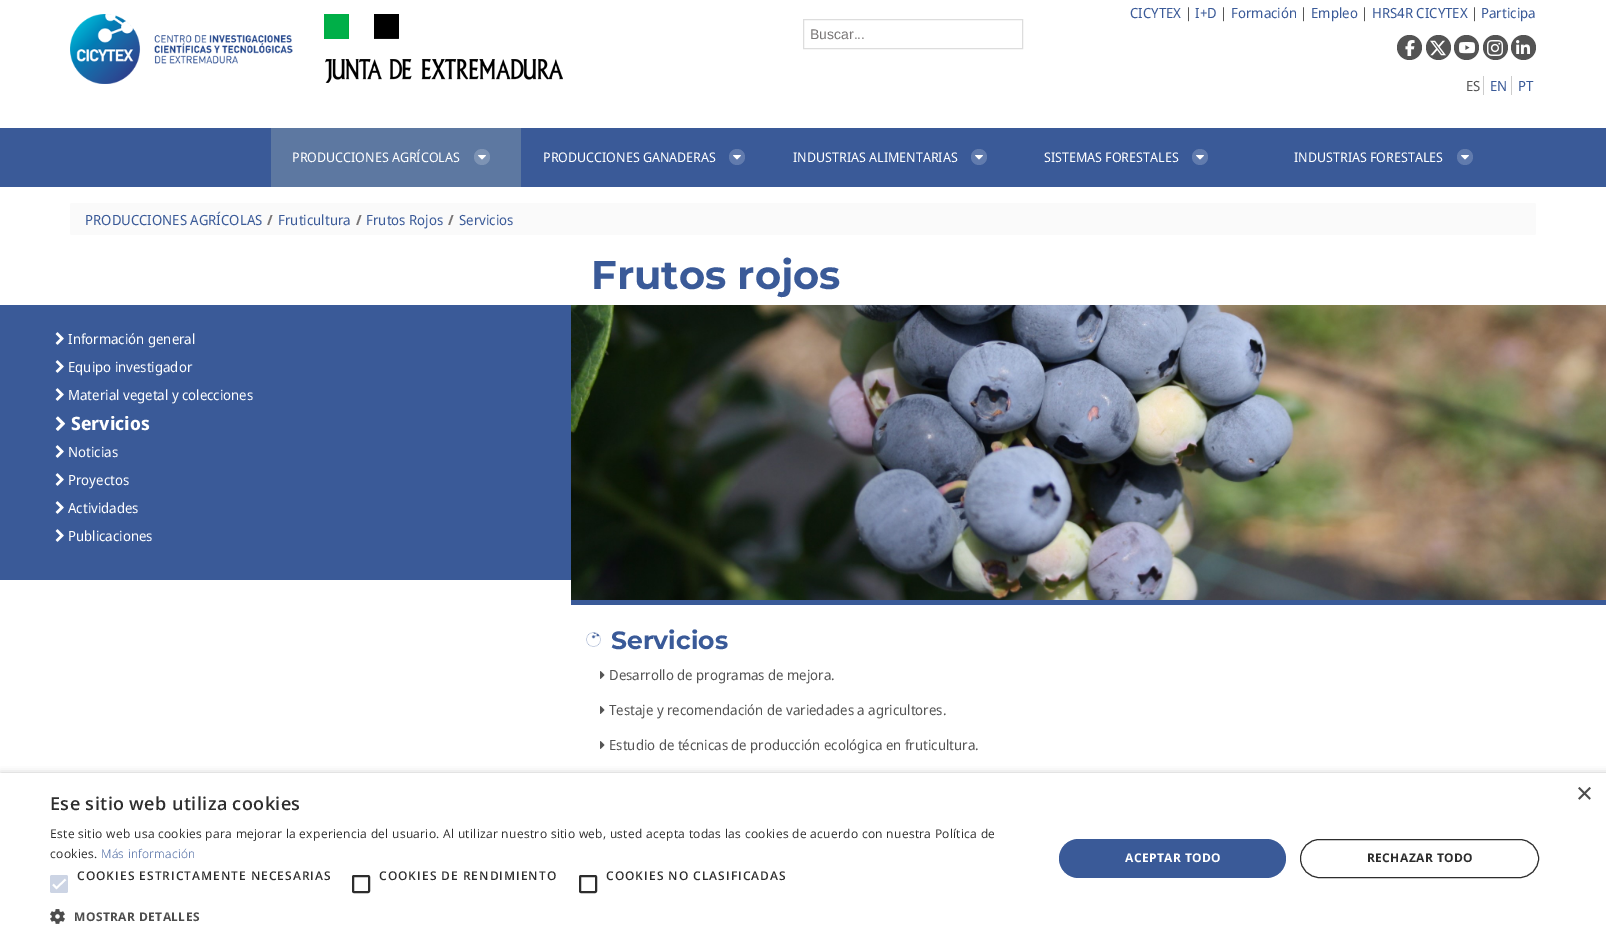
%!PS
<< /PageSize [1606 944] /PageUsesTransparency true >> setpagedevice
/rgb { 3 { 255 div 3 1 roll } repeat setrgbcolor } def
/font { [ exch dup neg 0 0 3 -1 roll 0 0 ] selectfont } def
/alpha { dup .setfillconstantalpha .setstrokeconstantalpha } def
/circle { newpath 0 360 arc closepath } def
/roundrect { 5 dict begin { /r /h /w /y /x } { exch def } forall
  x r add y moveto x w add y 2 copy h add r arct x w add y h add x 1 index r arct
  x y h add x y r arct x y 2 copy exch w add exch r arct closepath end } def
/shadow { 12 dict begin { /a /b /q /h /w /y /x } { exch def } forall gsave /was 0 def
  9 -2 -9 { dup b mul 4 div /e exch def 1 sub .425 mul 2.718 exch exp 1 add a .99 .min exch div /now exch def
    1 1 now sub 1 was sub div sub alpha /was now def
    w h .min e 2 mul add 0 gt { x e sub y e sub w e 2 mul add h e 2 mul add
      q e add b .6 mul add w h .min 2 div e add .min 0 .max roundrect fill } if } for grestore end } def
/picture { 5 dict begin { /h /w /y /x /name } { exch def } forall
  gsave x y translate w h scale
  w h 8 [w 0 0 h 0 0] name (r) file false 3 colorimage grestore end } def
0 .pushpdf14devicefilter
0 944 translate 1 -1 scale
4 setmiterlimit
255 255 255 rgb
0 0 1606 944 rectfill
(img/1.rgb) 70 14 223 70 picture
(img/2.rgb) 324 14 239 69 picture
221 221 221 rgb
803.5 19.5 219 29 rectstroke
84 84 84 rgb
1409.5 47.5 12.5 circle fill
(img/3.rgb) 1405 40 10 16 picture
1438.5 47.5 12.5 circle fill
(img/4.rgb) 1430 40 16 16 picture
1466.5 47.5 12.5 circle fill
(img/5.rgb) 1459 42 16 12 picture
1495.5 47.5 12.5 circle fill
(img/6.rgb) 1487 40 16 16 picture
1523.5 47.5 12.5 circle fill
(img/7.rgb) 1516 40 14 14 picture
[
  [1483 76 1 19 204 204 204]
  [1511 76 1 19 204 204 204]
  [0 128 1606 59 58 90 152]
  [271 128 250 59 93 120 161]
] { aload pop rgb rectfill } forall
125 147 180 rgb
482 157 8 circle fill
(img/8.rgb) 478 155 8 5 picture
97 123 173 rgb
737 157 8 circle fill
(img/9.rgb) 733 155 8 5 picture
979 157 8 circle fill
(img/9.rgb) 975 155 8 5 picture
1200 157 8 circle fill
(img/9.rgb) 1196 155 8 5 picture
1465 157 8 circle fill
(img/9.rgb) 1461 155 8 5 picture
250 250 250 rgb
70 203 1466 32 2 roundrect fill
58 90 152 rgb
0 305 571 275 rectfill
(img/10.rgb) 55 332 9 13 picture
(img/10.rgb) 55 360 9 13 picture
(img/10.rgb) 55 388 9 13 picture
(img/11.rgb) 55 416 11 15 picture
(img/10.rgb) 55 445 9 13 picture
(img/10.rgb) 55 473 9 13 picture
(img/10.rgb) 55 501 9 13 picture
(img/10.rgb) 55 529 9 13 picture
(img/12.rgb) 571 305 1035 295 picture
571 600 1035 5 rectfill
(img/13.rgb) 586 632 15 15 picture
(img/14.rgb) 600 671 5 8 picture
(img/14.rgb) 600 706 5 8 picture
(img/14.rgb) 600 741 5 8 picture
0 0 0 rgb
1 775 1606 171 0 4 0.35 shadow
255 255 255 rgb
0 773 1606 171 rectfill
204 212 228 rgb
50 875 18 18 2 roundrect fill
255 255 255 rgb
1.8 setlinewidth
53 884.5 moveto 56.5 888 lineto 65.5 879.5 lineto stroke
45 45 45 rgb
2 setlinewidth
353 876 16 16 1 roundrect stroke
580 876 16 16 1 roundrect stroke
(img/15.rgb) 50 909 15 15 picture
58 90 152 rgb
1059 839 227 39 19.5 roundrect fill
45 45 45 rgb
1 setlinewidth
1300.5 839.5 238 38 19 roundrect stroke
/LiberationSans-Regular 14 font
121 118 118 rgb
810 39 moveto (Buscar...) show
/NotoSansDisplay-Regular 14 font
58 90 152 rgb
1130 18 moveto (CICYTEX) show
85 85 85 rgb
1185 18 moveto (|) show
58 90 152 rgb
1195 18 moveto (I+D) show
85 85 85 rgb
1220 18 moveto (|) show
58 90 152 rgb
1231 18 moveto (Formación) show
85 85 85 rgb
1300 18 moveto (|) show
58 90 152 rgb
1311 18 moveto (Empleo) show
85 85 85 rgb
1361 18 moveto (|) show
58 90 152 rgb
1372 18 moveto (HRS4R CICYTEX) show
85 85 85 rgb
1471 18 moveto (|) show
58 90 152 rgb
1481 18 moveto (Participa) show
85 85 85 rgb
1466 91 moveto (ES) show
58 90 152 rgb
1490 91 moveto (EN) show
1518 91 moveto (PT) show
/NotoSansDisplay-Regular 13.25 font
255 255 255 rgb
[
  [(PRODUCCIONES AGRÍCOLAS) 292 162]
  [(PRODUCCIONES GANADERAS) 543 162]
  [(INDUSTRIAS ALIMENTARIAS) 793 162]
  [(SISTEMAS FORESTALES) 1044 162]
  [(INDUSTRIAS FORESTALES) 1294 162]
] { aload pop moveto show } forall
/NotoSansDisplay-Regular 14 font
58 90 152 rgb
85 225 moveto (PRODUCCIONES AGRÍCOLAS) show
/NotoSansDisplay-Bold 14 font
121 118 118 rgb
267 225 moveto (/) show
/NotoSansDisplay-Regular 14 font
58 90 152 rgb
278 225 moveto (Fruticultura) show
/NotoSansDisplay-Bold 14 font
121 118 118 rgb
356 225 moveto (/) show
/NotoSansDisplay-Regular 14 font
58 90 152 rgb
366 225 moveto (Frutos Rojos) show
/NotoSansDisplay-Bold 14 font
121 118 118 rgb
448 225 moveto (/) show
/NotoSansDisplay-Regular 14 font
58 90 152 rgb
459 225 moveto (Servicios) show
255 255 255 rgb
[
  [(Información general) 68 344]
  [(Equipo investigador) 68 372]
  [(Material vegetal y colecciones) 68 400]
] { aload pop moveto show } forall
/NotoSansDisplay-Bold 18.5 font
71 430 moveto (Servicios) show
/NotoSansDisplay-Regular 14 font
[
  [(Noticias) 68 457]
  [(Proyectos) 68 485]
  [(Actividades) 68 513]
  [(Publicaciones) 68 541]
] { aload pop moveto show } forall
/Montserrat-Thin 40 font
58 90 152 rgb
591 289 moveto (Frutos rojos) show
/Montserrat-Thin 25 font
611 649 moveto (Servicios) show
/NotoSansDisplay-Regular 14 font
85 85 85 rgb
[
  [(Desarrollo de programas de mejora.) 609 680]
  [(Testaje y recomendación de variedades a agricultores.) 609 715]
  [(Estudio de técnicas de producción ecológica en fruticultura.) 609 750]
] { aload pop moveto show } forall
/LiberationSans-Regular 29 font
77 77 77 rgb
1576 803 moveto (×) show
/OpenSans-SemiBold 18 font
45 45 45 rgb
50 810 moveto 0.4 0 (Ese sitio web utiliza cookies) ashow
/OpenSans-Regular 12 font
50 838 moveto 0.3 0 (Este sitio web usa cookies para mejorar la experiencia del usuario. Al utilizar nuestro sitio web, usted acepta todas las cookies de acuerdo con nuestra Política de) ashow
50 858 moveto 0.3 0 (cookies.) ashow
/OpenSans-Light 12 font
58 90 152 rgb
101 858 moveto 0.3 0 (Más información) ashow
/OpenSans-SemiBold 12 font
45 45 45 rgb
77 880 moveto 1 0 (COOKIES ESTRICTAMENTE NECESARIAS) ashow
379 880 moveto 1 0 (COOKIES DE RENDIMIENTO) ashow
606 880 moveto 1 0 (COOKIES NO CLASIFICADAS) ashow
/OpenSans-Bold 12 font
77 77 77 rgb
74 921 moveto 0.4 0 (MOSTRAR DETALLES) ashow
255 255 255 rgb
1125 862 moveto 0.4 0 (ACEPTAR TODO) ashow
45 45 45 rgb
1367 862 moveto 0.4 0 (RECHAZAR TODO) ashow
.poppdf14devicefilter showpage
